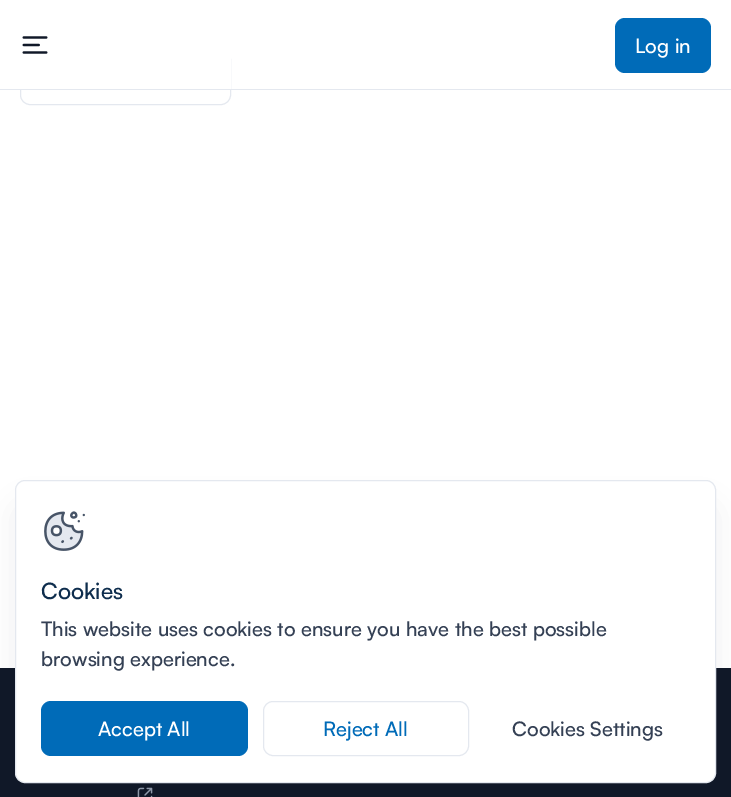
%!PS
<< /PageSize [731 797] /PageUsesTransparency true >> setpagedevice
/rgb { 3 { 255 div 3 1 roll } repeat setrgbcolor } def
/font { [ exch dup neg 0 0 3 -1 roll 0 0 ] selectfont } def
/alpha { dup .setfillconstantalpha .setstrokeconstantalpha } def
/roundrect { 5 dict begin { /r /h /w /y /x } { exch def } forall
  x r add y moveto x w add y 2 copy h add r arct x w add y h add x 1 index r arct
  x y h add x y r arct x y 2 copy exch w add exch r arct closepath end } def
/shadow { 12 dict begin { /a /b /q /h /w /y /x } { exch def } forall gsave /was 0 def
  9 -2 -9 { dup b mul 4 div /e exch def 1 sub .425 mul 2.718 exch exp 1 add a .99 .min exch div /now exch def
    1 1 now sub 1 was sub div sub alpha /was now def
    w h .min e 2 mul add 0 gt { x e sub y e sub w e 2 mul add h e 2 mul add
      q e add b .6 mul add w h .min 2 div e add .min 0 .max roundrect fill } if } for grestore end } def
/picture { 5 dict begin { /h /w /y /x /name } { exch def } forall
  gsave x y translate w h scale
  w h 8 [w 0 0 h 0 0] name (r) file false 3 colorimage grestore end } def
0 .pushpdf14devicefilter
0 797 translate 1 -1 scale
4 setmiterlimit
255 255 255 rgb
0 0 731 797 rectfill
228 232 239 rgb
20.5 50.5 210 54 9.5 roundrect stroke
255 255 255 rgb
20 50 211 39 rectfill
228 232 239 rgb
0 89 731 1 rectfill
(img/1.rgb) 22 36 26 18 picture
0 107 184 rgb
615 18 96 55 10 roundrect fill
16 24 40 rgb
0 668 731 129 rectfill
(img/2.rgb) 137 787 16 10 picture
20 510 691 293 5 15 0.08 shadow
255 255 255 rgb
15.5 480.5 700 302 9.5 roundrect gsave fill grestore
228 232 239 rgb
stroke
(img/3.rgb) 44 511 41 40 picture
0 107 184 rgb
41 701 207 55 10 roundrect fill
228 232 239 rgb
263.5 701.5 205 54 9.5 roundrect stroke
/Satoshi-Medium 20 font
255 255 255 rgb
635 53 moveto (Log in) show
/Satoshi-Medium 22.5 font
14 45 77 rgb
41 599 moveto (Cookies) show
/Satoshi-Medium 20 font
52 64 84 rgb
41 636 moveto (This website uses cookies to ensure you have the best possible) show
41 666 moveto (browsing experience.) show
255 255 255 rgb
98 736 moveto (Accept All) show
0 107 184 rgb
323 736 moveto (Reject All) show
52 64 84 rgb
512 736 moveto (Cookies Settings) show
.poppdf14devicefilter showpage
